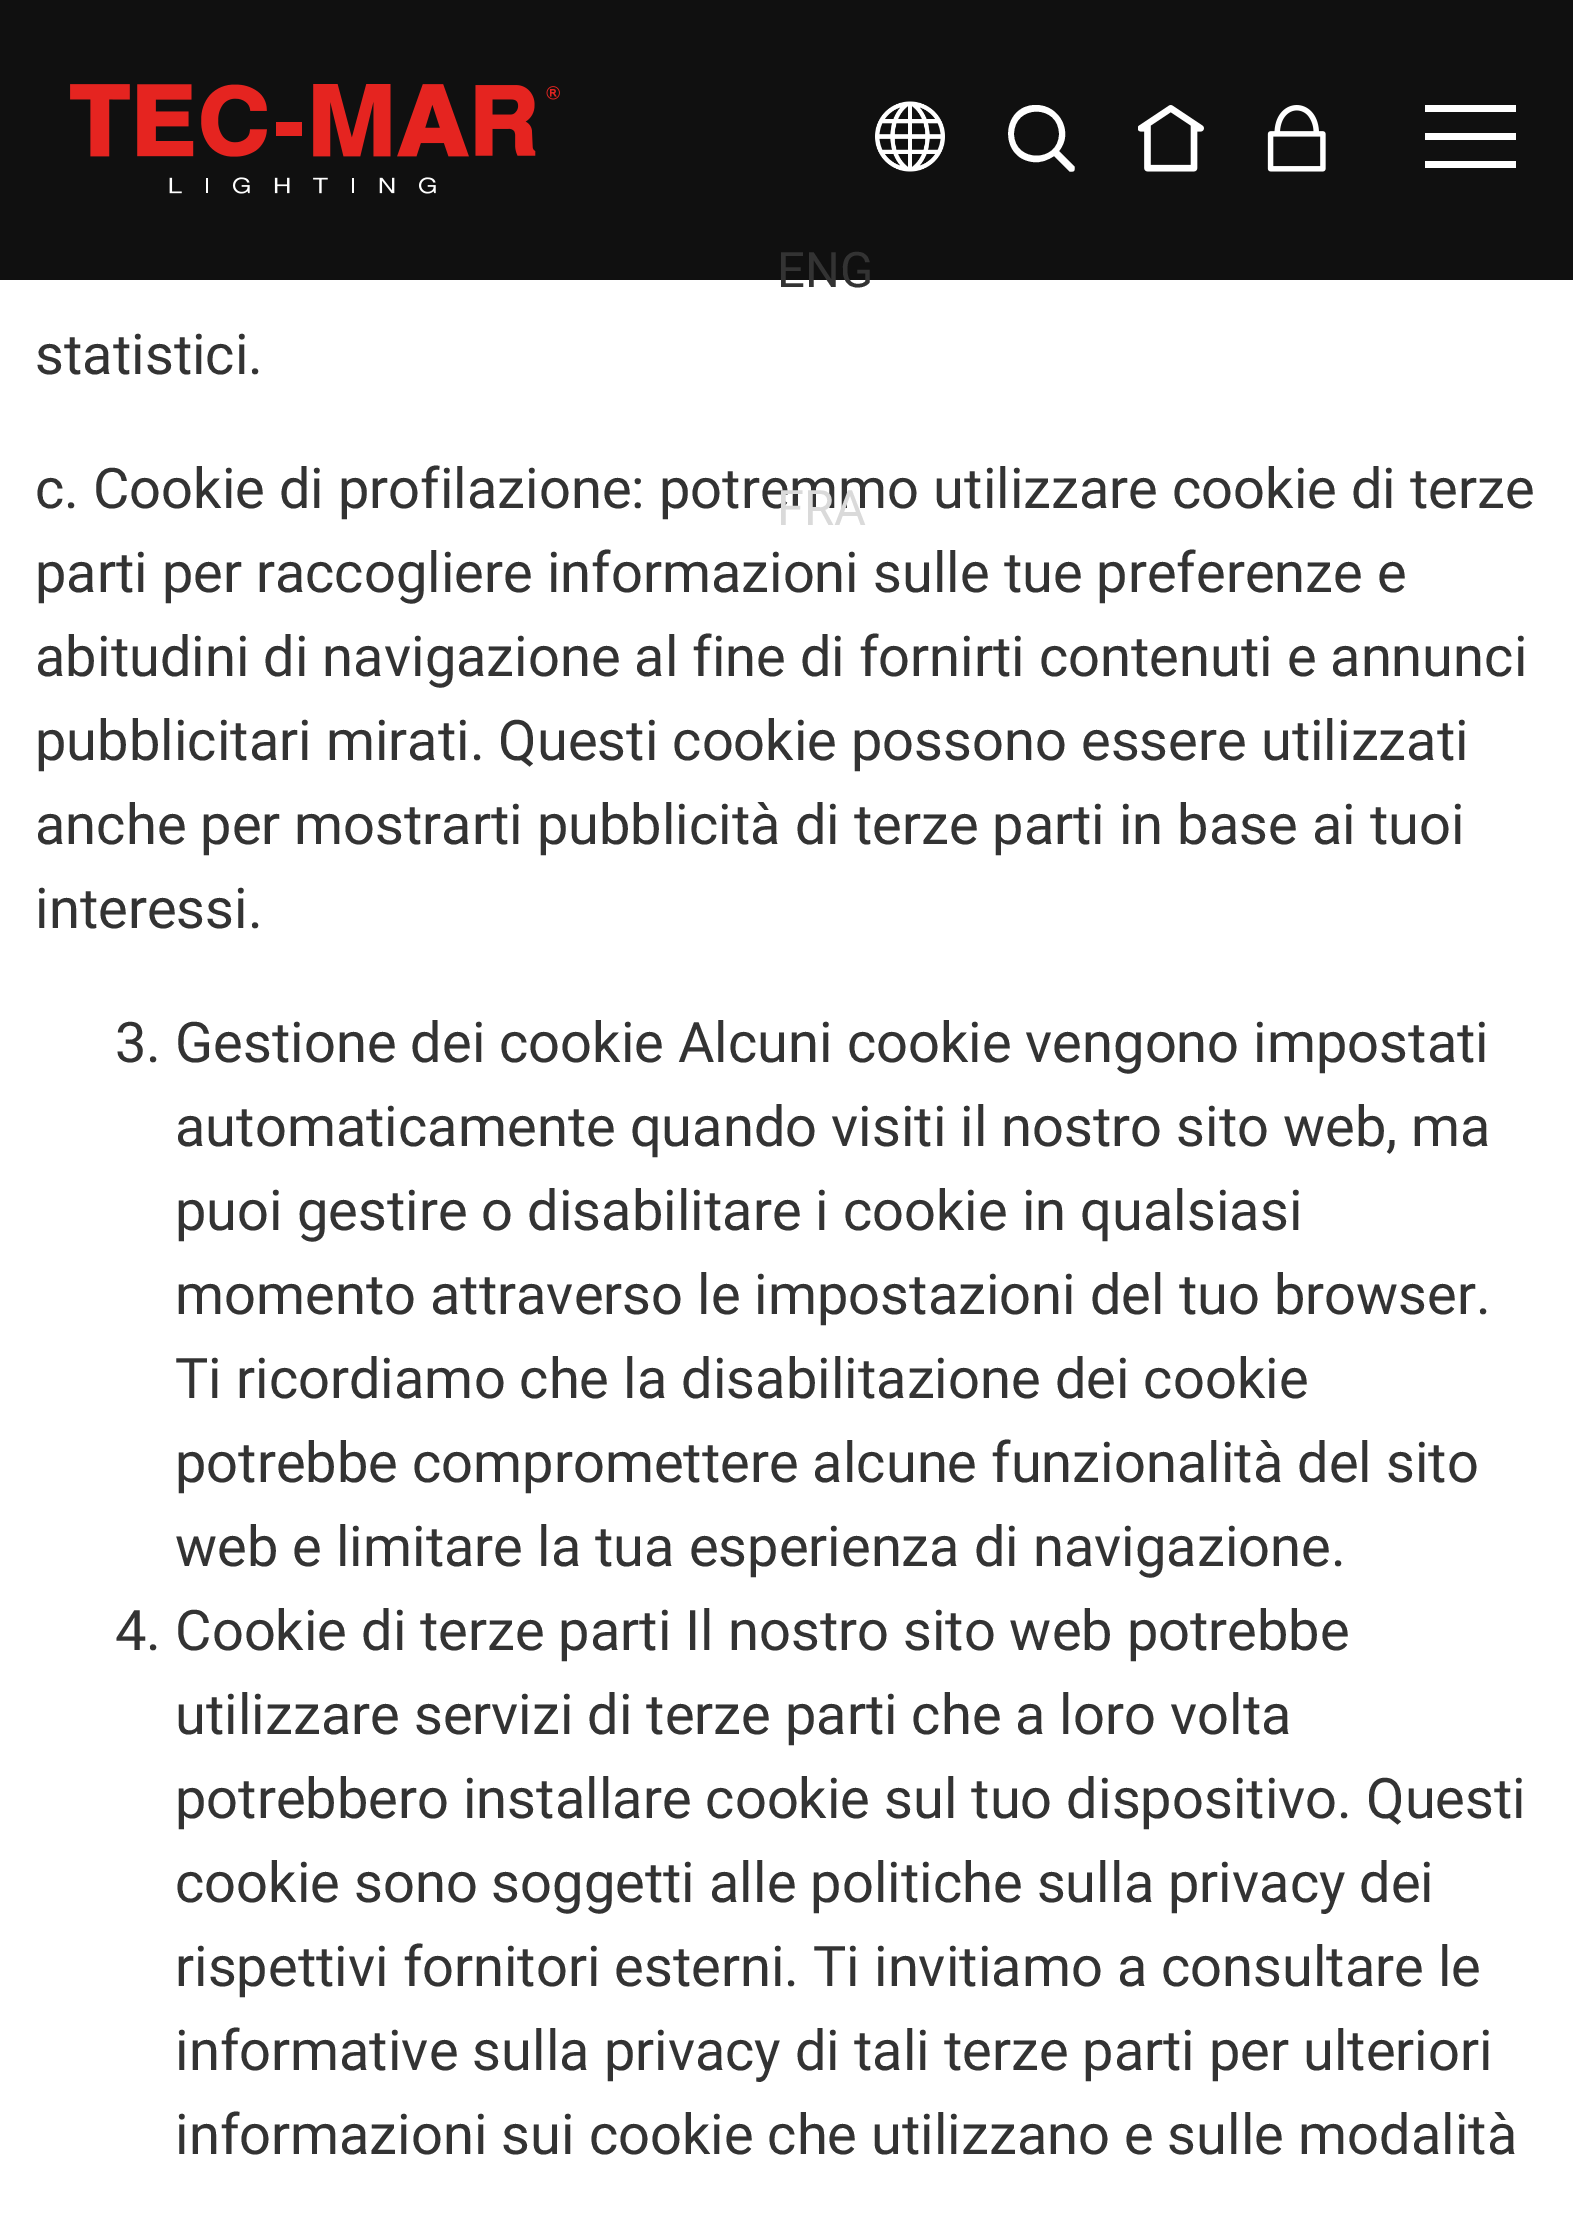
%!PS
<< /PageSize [1573 2226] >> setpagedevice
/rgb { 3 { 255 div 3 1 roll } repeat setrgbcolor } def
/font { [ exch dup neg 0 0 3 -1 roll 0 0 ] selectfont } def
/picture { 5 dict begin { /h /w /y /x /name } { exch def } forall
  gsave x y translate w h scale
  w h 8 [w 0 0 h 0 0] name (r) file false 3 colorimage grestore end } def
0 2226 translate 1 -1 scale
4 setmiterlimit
255 255 255 rgb
0 0 1573 2226 rectfill
[
  [0 0 1573 280 16 16 16]
  [1425 105 91 7 255 255 255]
  [1425 133 91 7 255 255 255]
  [1425 161 91 7 255 255 255]
] { aload pop rgb rectfill } forall
(img/1.rgb) 70 84 490 110 picture
1036 105 moveto 1001 105 998 158 1033 162 curveto 1041 163 1048 160 1054 156 curveto 1069 171 lineto 1070 172 1072 172 1074 171 curveto 1075 169 1075 167 1074 166 curveto 1059 151 lineto 1074 133 1060 105 1036 105 curveto closepath 1014 134 moveto 1014 104 1059 104 1059 134 curveto 1059 163 1014 163 1014 134 curveto closepath eofill
(img/2.rgb) 1138 105 66 67 picture
(img/3.rgb) 1267 105 59 67 picture
(img/4.rgb) 875 101 70 71 picture
/Roboto-Regular 49 font
51 51 51 rgb
777 287 moveto (ENG) show
/Roboto-Regular 56 font
35 374 moveto (statistici.) show
35 508 moveto (c. Cookie di profilazione: potremmo utilizzare cookie di terze) show
/Roboto-Regular 49 font
218 218 218 rgb
777 525 moveto (FRA) show
/Roboto-Regular 56 font
51 51 51 rgb
[
  [(parti per raccogliere informazioni sulle tue preferenze e) 35 592]
  [(abitudini di navigazione al fine di fornirti contenuti e annunci) 35 676]
  [(pubblicitari mirati. Questi cookie possono essere utilizzati) 35 760]
  [(anche per mostrarti pubblicità di terze parti in base ai tuoi) 35 844]
  [(interessi.) 35 928]
  [(3. Gestione dei cookie Alcuni cookie vengono impostati) 115 1062]
  [(automaticamente quando visiti il nostro sito web, ma) 175 1146]
  [(puoi gestire o disabilitare i cookie in qualsiasi) 175 1230]
  [(momento attraverso le impostazioni del tuo browser.) 175 1314]
  [(Ti ricordiamo che la disabilitazione dei cookie) 175 1398]
  [(potrebbe compromettere alcune funzionalità del sito) 175 1482]
  [(web e limitare la tua esperienza di navigazione.) 175 1566]
  [(4. Cookie di terze parti Il nostro sito web potrebbe) 115 1650]
  [(utilizzare servizi di terze parti che a loro volta) 175 1734]
  [(potrebbero installare cookie sul tuo dispositivo. Questi) 175 1818]
  [(cookie sono soggetti alle politiche sulla privacy dei) 175 1902]
  [(rispettivi fornitori esterni. Ti invitiamo a consultare le) 175 1986]
  [(informative sulla privacy di tali terze parti per ulteriori) 175 2070]
  [(informazioni sui cookie che utilizzano e sulle modalità) 175 2154]
] { aload pop moveto show } forall
showpage
